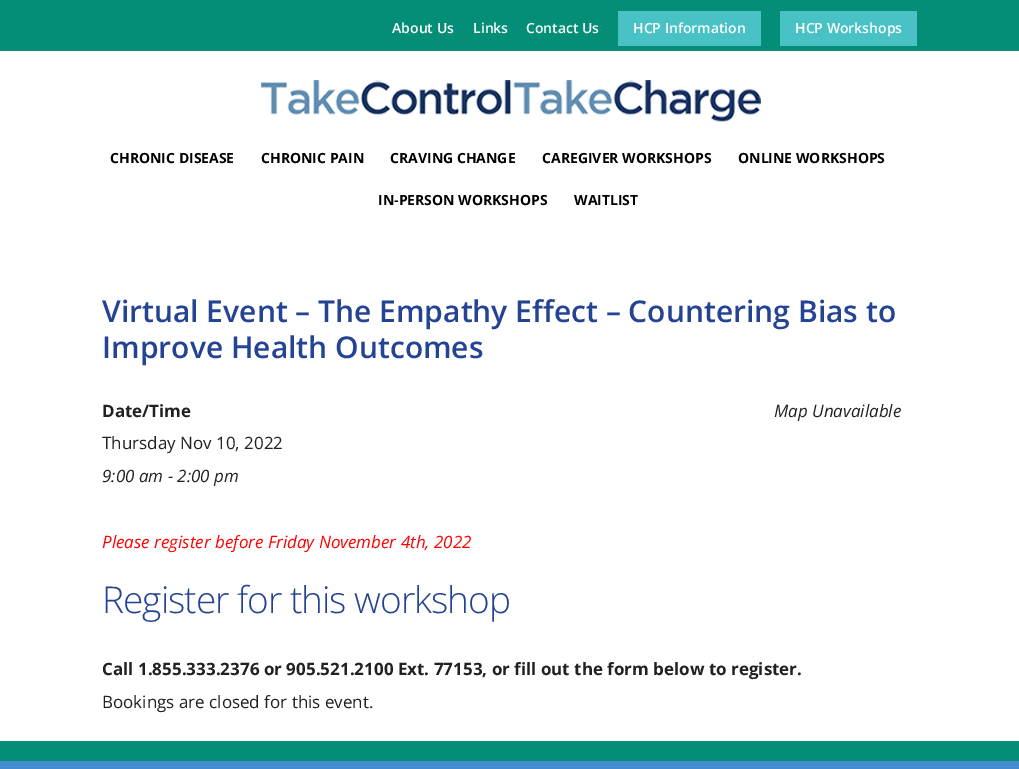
%!PS
<< /PageSize [1019 769] >> setpagedevice
/rgb { 3 { 255 div 3 1 roll } repeat setrgbcolor } def
/font { [ exch dup neg 0 0 3 -1 roll 0 0 ] selectfont } def
/picture { 5 dict begin { /h /w /y /x /name } { exch def } forall
  gsave x y translate w h scale
  w h 8 [w 0 0 h 0 0] name (r) file false 3 colorimage grestore end } def
0 769 translate 1 -1 scale
4 setmiterlimit
68 140 207 rgb
0 0 1019 769 rectfill
[
  [0 0 1019 51 4 142 119]
  [618 11 143 35 72 194 197]
  [780 11 137 35 72 194 197]
  [0 51 1019 690 255 255 255]
] { aload pop rgb rectfill } forall
(img/1.rgb) 261 80 500 42 picture
4 142 119 rgb
0 741 1019 20 rectfill
/OpenSans-SemiBold 14 font
255 255 255 rgb
[
  [(About Us) 392 33]
  [(Links) 473 33]
  [(Contact Us) 526 33]
  [(HCP Information) 633 33]
  [(HCP Workshops) 795 33]
] { aload pop moveto show } forall
/OpenSans-Bold 14 font
0 0 0 rgb
[
  [(CHRONIC DISEASE) 110 163]
  [(CHRONIC PAIN) 261 163]
  [(CRAVING CHANGE) 390 163]
  [(CAREGIVER WORKSHOPS) 542 163]
  [(ONLINE WORKSHOPS) 738 163]
  [(IN-PERSON WORKSHOPS) 378 205]
  [(WAITLIST) 574 205]
] { aload pop moveto show } forall
/OpenSans-SemiBold 30 font
36 68 147 rgb
102 322 moveto (Virtual Event – The Empathy Effect – Countering Bias to) show
102 358 moveto (Improve Health Outcomes) show
/OpenSans-Bold 17 font
33 33 33 rgb
102 417 moveto (Date/Time) show
/OpenSans-Regular 17 font
102 449 moveto (Thursday Nov 10, 2022) show
/OpenSans-Italic 17 font
102 482 moveto (9:00 am - 2:00 pm) show
774 417 moveto (Map Unavailable) show
255 0 0 rgb
102 548 moveto (Please register before Friday November 4th, 2022) show
/OpenSans-Light 37 font
36 68 147 rgb
102 613 moveto -1 0 (Register for this workshop) ashow
/OpenSans-Bold 17 font
33 33 33 rgb
102 675 moveto (Call 1.855.333.2376 or 905.521.2100 Ext. 77153, or fill out the form below to register.) show
/OpenSans-Regular 17 font
102 708 moveto (Bookings are closed for this event.) show
showpage
